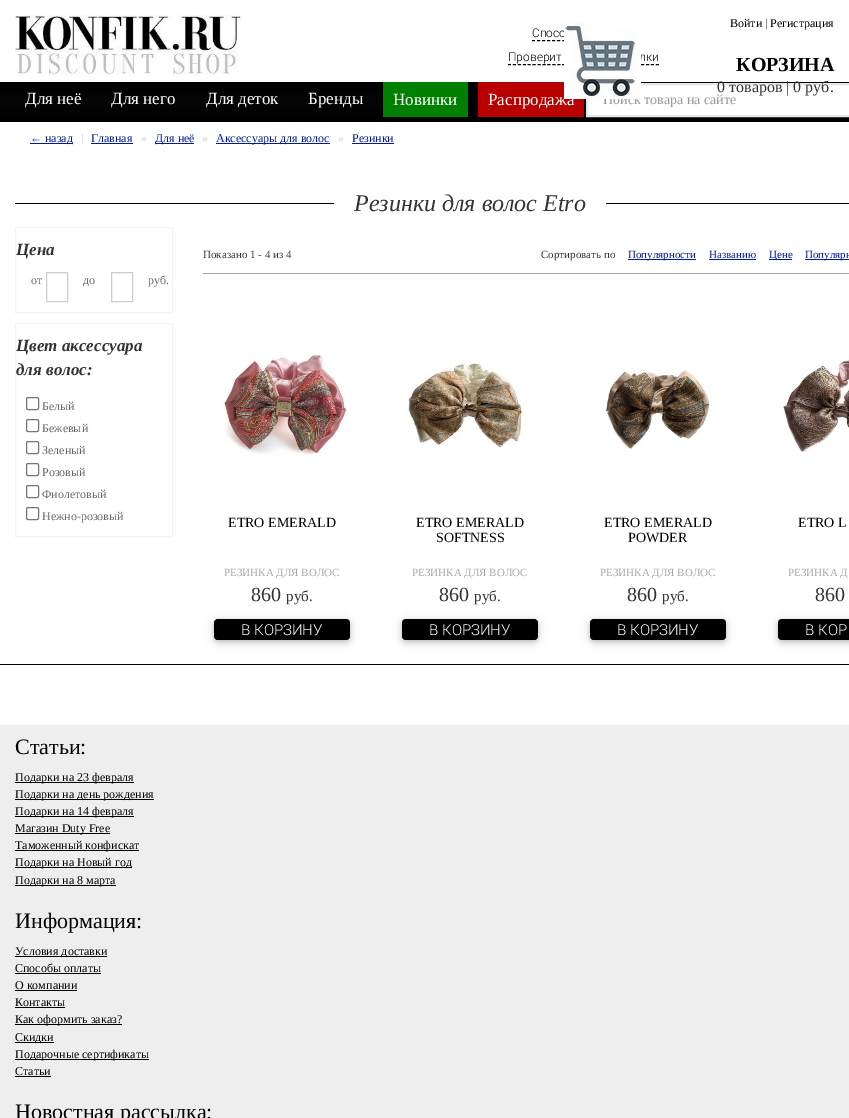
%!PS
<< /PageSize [849 1118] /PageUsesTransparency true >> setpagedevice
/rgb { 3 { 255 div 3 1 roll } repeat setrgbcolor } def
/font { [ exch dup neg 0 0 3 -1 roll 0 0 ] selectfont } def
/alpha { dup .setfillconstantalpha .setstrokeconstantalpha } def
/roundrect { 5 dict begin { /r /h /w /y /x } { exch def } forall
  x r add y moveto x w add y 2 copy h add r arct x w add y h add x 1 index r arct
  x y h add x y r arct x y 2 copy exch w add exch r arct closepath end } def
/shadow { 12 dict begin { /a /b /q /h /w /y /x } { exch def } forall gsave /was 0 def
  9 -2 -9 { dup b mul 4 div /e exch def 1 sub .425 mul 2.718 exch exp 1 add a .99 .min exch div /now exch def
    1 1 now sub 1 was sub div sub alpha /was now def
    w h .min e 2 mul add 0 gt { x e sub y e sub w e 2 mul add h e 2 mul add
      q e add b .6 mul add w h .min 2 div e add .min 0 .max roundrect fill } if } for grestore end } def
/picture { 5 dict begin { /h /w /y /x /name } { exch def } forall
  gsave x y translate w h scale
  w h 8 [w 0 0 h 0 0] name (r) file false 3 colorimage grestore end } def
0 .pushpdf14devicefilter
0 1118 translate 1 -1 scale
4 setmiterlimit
255 255 255 rgb
0 0 849 1118 rectfill
(img/1.rgb) 15 15 228 60 picture
0 0 0 rgb
[3 2.05] 0 setdash
532 40.5 moveto 636 40.5 lineto stroke
[3 1.93] 0 setdash
508 64.5 moveto 659 64.5 lineto stroke
gsave 0 82 moveto 849 82 lineto 849 122 lineto 0 122 lineto closepath clip newpath
<< /ShadingType 2 /ColorSpace /DeviceRGB /Coords [425 82 425 122] /Extend [true true] /Function << /FunctionType 3 /Domain [0 1] /Functions [<< /FunctionType 2 /Domain [0 1] /C0 [0 0 0] /C1 [0.02 0.02 0.02] /N 1 >> << /FunctionType 2 /Domain [0 1] /C0 [0.02 0.02 0.02] /C1 [0 0 0] /N 1 >>] /Bounds [0.5] /Encode [0 1 0 1] >> >> shfill grestore
0 128 0 rgb
383 82 85 35 rectfill
185 0 0 rgb
478 82 106 35 rectfill
255 255 255 rgb
587 84 moveto 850 84 lineto 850 116 lineto 587 116 lineto closepath gsave fill grestore
231 231 231 rgb
2 setlinewidth
[] 0 setdash
stroke
[
  [30 143 43 1 0 25 153]
  [91 143 42 1 0 25 153]
  [155 143 39 1 0 25 153]
  [216 143 114 1 0 25 153]
  [352 143 42 1 0 25 153]
  [15 203 834 1 0 0 0]
  [334 203 272 1 255 255 255]
] { aload pop rgb rectfill } forall
243 243 243 rgb
1 setlinewidth
15.5 227.5 157 85 rectstroke
204 204 204 rgb
46.5 272.5 21 29 rectstroke
111.5 272.5 21 29 rectstroke
243 243 243 rgb
15.5 323.5 157 213 rectstroke
118 118 118 rgb
26.5 397.5 12 12 1.5 roundrect stroke
26.5 419.5 12 12 1.5 roundrect stroke
26.5 441.5 12 12 1.5 roundrect stroke
26.5 463.5 12 12 1.5 roundrect stroke
26.5 485.5 12 12 1.5 roundrect stroke
26.5 507.5 12 12 1.5 roundrect stroke
[
  [628 259 68 1 0 25 153]
  [709 259 47 1 0 25 153]
  [769 259 23 1 0 25 153]
  [805 259 44 1 0 25 153]
  [203 273 646 1 165 165 165]
] { aload pop rgb rectfill } forall
(img/3.rgb) 223 355 127 102 picture
0 0 0 rgb
214 621 136 21 4 5 0.12 shadow
214 621 136 21 4 2.5 0.16 shadow
214 619 136 21 4 roundrect fill
(img/4.rgb) 406 363 118 86 picture
402 621 136 21 4 5 0.12 shadow
402 621 136 21 4 2.5 0.16 shadow
402 619 136 21 4 roundrect fill
(img/5.rgb) 605 370 107 79 picture
590 621 136 21 4 5 0.12 shadow
590 621 136 21 4 2.5 0.16 shadow
590 619 136 21 4 roundrect fill
(img/6.rgb) 782 359 67 93 picture
778 621 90 21 4 5 0.12 shadow
778 621 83 21 4 2.5 0.16 shadow
778 619 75 21 4 roundrect fill
[
  [0 664 849 1 0 0 0]
  [0 725 849 393 238 238 238]
  [15 782 119 1 0 0 0]
  [15 799 139 1 0 0 0]
  [15 816 119 1 0 0 0]
  [15 833 95 1 0 0 0]
  [15 850 124 1 0 0 0]
  [15 867 117 1 0 0 0]
  [15 885 101 1 0 0 0]
  [15 956 92 1 0 0 0]
  [15 973 86 1 0 0 0]
  [15 990 62 1 0 0 0]
  [15 1007 50 1 0 0 0]
  [15 1024 107 1 0 0 0]
  [15 1042 39 1 0 0 0]
  [15 1059 134 1 0 0 0]
  [15 1076 36 1 0 0 0]
] { aload pop rgb rectfill } forall
/Roboto-Light 12 font
[
  [(Спосо) 532 37]
  [(Проверит) 508 61]
  [(лки) 639 61]
] { aload pop moveto show } forall
/LiberationSerif-Regular 12 font
730 27 moveto (Войти) show
51 51 51 rgb
765 27 moveto (|) show
0 0 0 rgb
770 27 moveto (Регистрация) show
/LiberationSerif-Bold 20 font
736 71 moveto (КОРЗИНА) show
/LiberationSerif-Regular 16 font
51 51 51 rgb
717 92 moveto (0 товаров | 0 руб.) show
/LiberationSerif-Regular 17 font
255 255 255 rgb
[
  [(Для неё) 25 104]
  [(Для него) 111 104]
  [(Для деток) 206 104]
  [(Бренды) 308 104]
  [(Новинки) 393 105]
  [(Распродажа) 488 105]
] { aload pop moveto show } forall
/LiberationSerif-Regular 14 font
153 153 153 rgb
603 104 moveto (Поиск товара на сайте) show
(img/2.rgb) 564 22 77 77 picture
/LiberationSerif-Regular 12 font
0 25 153 rgb
30 142 moveto (← назад) show
204 204 204 rgb
81 142 moveto (|) show
0 25 153 rgb
91 142 moveto (Главная) show
204 204 204 rgb
141 142 moveto (») show
0 25 153 rgb
155 142 moveto (Для неё) show
204 204 204 rgb
202 142 moveto (») show
0 25 153 rgb
216 142 moveto (Аксессуары для волос) show
204 204 204 rgb
338 142 moveto (») show
0 25 153 rgb
352 142 moveto (Резинки) show
/LiberationSerif-Italic 24 font
51 51 51 rgb
354 211 moveto (Резинки для волос Etro) show
/LiberationSerif-BoldItalic 17 font
16 255 moveto (Цена) show
/LiberationSerif-Regular 12 font
104 104 104 rgb
[
  [(от) 31 284]
  [(до) 83 284]
  [(руб.) 148 284]
] { aload pop moveto show } forall
/LiberationSerif-BoldItalic 17 font
51 51 51 rgb
16 351 moveto (Цвет аксессуара) show
16 375 moveto (для волос:) show
/LiberationSerif-Regular 12 font
104 104 104 rgb
[
  [(Белый) 42 410]
  [(Бежевый) 42 432]
  [(Зеленый) 42 454]
  [(Розовый) 42 476]
  [(Фиолетовый) 42 498]
  [(Нежно-розовый) 42 520]
] { aload pop moveto show } forall
/LiberationSerif-Regular 11 font
51 51 51 rgb
203 258 moveto (Показано 1 - 4 из 4) show
541 258 moveto (Сортировать по) show
0 25 153 rgb
[
  [(Популярности) 628 258]
  [(Названию) 709 258]
  [(Цене) 769 258]
  [(Популярн) 805 258]
] { aload pop moveto show } forall
/LiberationSerif-Regular 14 font
0 0 0 rgb
228 527 moveto (ETRO EMERALD) show
/LiberationSerif-Regular 11 font
168 168 168 rgb
224 576 moveto (РЕЗИНКА ДЛЯ ВОЛОС) show
/LiberationSerif-Regular 20 font
51 51 51 rgb
251 601 moveto (860) show
/LiberationSerif-Regular 15 font
286 601 moveto (руб.) show
/Roboto-Light 15 font
255 255 255 rgb
241 635 moveto (В КОРЗИНУ) show
/LiberationSerif-Regular 14 font
0 0 0 rgb
416 527 moveto (ETRO EMERALD) show
436 542 moveto (SOFTNESS) show
/LiberationSerif-Regular 11 font
168 168 168 rgb
412 576 moveto (РЕЗИНКА ДЛЯ ВОЛОС) show
/LiberationSerif-Regular 20 font
51 51 51 rgb
439 601 moveto (860) show
/LiberationSerif-Regular 15 font
474 601 moveto (руб.) show
/Roboto-Light 15 font
255 255 255 rgb
429 635 moveto (В КОРЗИНУ) show
/LiberationSerif-Regular 14 font
0 0 0 rgb
604 527 moveto (ETRO EMERALD) show
628 542 moveto (POWDER) show
/LiberationSerif-Regular 11 font
168 168 168 rgb
600 576 moveto (РЕЗИНКА ДЛЯ ВОЛОС) show
/LiberationSerif-Regular 20 font
51 51 51 rgb
627 601 moveto (860) show
/LiberationSerif-Regular 15 font
662 601 moveto (руб.) show
/Roboto-Light 15 font
255 255 255 rgb
617 635 moveto (В КОРЗИНУ) show
/LiberationSerif-Regular 14 font
0 0 0 rgb
798 527 moveto (ETRO L) show
/LiberationSerif-Regular 11 font
168 168 168 rgb
788 576 moveto (РЕЗИНКА Д) show
/LiberationSerif-Regular 20 font
51 51 51 rgb
815 601 moveto (860) show
/Roboto-Light 15 font
255 255 255 rgb
805 635 moveto (В КОР) show
/LiberationSerif-Regular 22 font
0 0 0 rgb
15 754 moveto (Статьи:) show
/LiberationSerif-Regular 12 font
[
  [(Подарки на 23 февраля) 15 781]
  [(Подарки на день рождения) 15 798]
  [(Подарки на 14 февраля) 15 815]
  [(Магазин Duty Free) 15 832]
  [(Таможенный конфискат) 15 849]
  [(Подарки на Новый год) 15 866]
  [(Подарки на 8 марта) 15 884]
] { aload pop moveto show } forall
/LiberationSerif-Regular 22 font
15 928 moveto (Информация:) show
/LiberationSerif-Regular 12 font
[
  [(Условия доставки) 15 955]
  [(Способы оплаты) 15 972]
  [(О компании) 15 989]
  [(Контакты) 15 1006]
  [(Как оформить заказ?) 15 1023]
  [(Скидки) 15 1041]
  [(Подарочные сертификаты) 15 1058]
  [(Статьи) 15 1075]
] { aload pop moveto show } forall
/LiberationSerif-Regular 22 font
15 1119 moveto (Новостная рассылка:) show
.poppdf14devicefilter showpage
